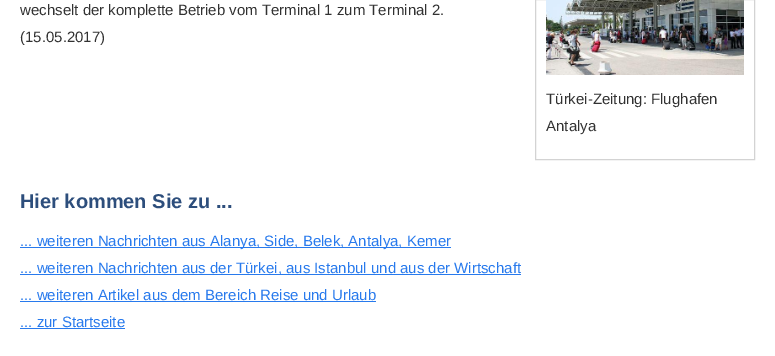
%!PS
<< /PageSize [775 356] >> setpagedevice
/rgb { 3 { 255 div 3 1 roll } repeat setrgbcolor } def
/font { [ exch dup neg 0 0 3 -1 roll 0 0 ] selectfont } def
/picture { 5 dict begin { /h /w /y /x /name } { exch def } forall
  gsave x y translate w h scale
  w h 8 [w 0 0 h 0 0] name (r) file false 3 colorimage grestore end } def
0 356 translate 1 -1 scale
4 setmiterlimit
255 255 255 rgb
0 0 775 356 rectfill
211 211 211 rgb
535.5 -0.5 219 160 rectstroke
(img/1.rgb) 546 0 198 75 picture
[
  [20 247 431 1 40 122 237]
  [20 274 501 1 40 122 237]
  [20 301 356 1 40 122 237]
  [20 328 105 1 40 122 237]
] { aload pop rgb rectfill } forall
/LiberationSans-Regular 15 font
50 50 50 rgb
[
  [(wechselt der komplette Betrieb vom Terminal 1 zum Terminal 2.) 20 15]
  [(\(15.05.2017\)) 20 42]
  [(Türkei-Zeitung: Flughafen) 546 104]
  [(Antalya) 546 131]
] { aload pop moveto show } forall
/LiberationSans-Bold 20 font
45 78 124 rgb
20 208 moveto (Hier kommen Sie zu ...) show
/LiberationSans-Regular 15 font
40 122 237 rgb
[
  [(... weiteren Nachrichten aus Alanya, Side, Belek, Antalya, Kemer) 20 246]
  [(... weiteren Nachrichten aus der Türkei, aus Istanbul und aus der Wirtschaft) 20 273]
  [(... weiteren Artikel aus dem Bereich Reise und Urlaub) 20 300]
  [(... zur Startseite) 20 327]
] { aload pop moveto show } forall
showpage
